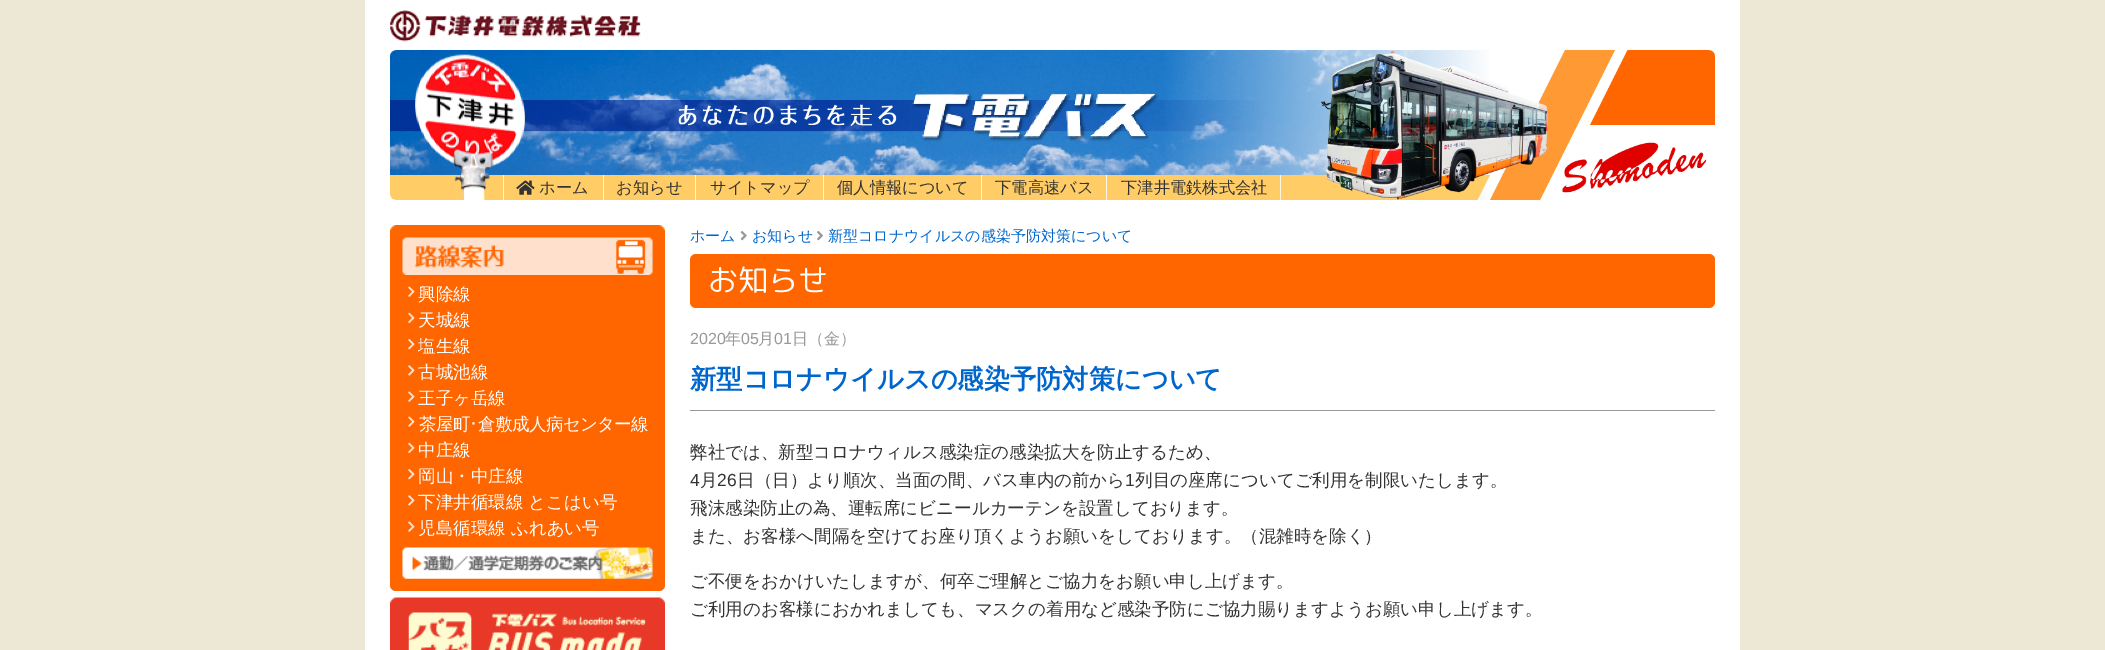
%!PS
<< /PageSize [2105 650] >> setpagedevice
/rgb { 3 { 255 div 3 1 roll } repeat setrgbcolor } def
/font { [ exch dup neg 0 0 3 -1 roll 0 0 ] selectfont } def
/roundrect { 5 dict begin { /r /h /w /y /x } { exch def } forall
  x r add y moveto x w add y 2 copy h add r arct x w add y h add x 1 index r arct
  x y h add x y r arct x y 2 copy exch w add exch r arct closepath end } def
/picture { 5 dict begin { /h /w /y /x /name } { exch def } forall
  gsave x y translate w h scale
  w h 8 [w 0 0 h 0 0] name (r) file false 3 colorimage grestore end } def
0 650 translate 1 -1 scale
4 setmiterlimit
237 232 214 rgb
0 0 2105 650 rectfill
255 255 255 rgb
365 0 1375 650 rectfill
(img/1.rgb) 390 10 251 32 picture
(img/2.rgb) 389 50 1326 150 picture
255 245 224 rgb
503 175 1 25 rectfill
(img/3.rgb) 516 180 19 15 picture
[
  [603 175 1 25 255 245 224]
  [695 175 1 25 255 245 224]
  [823 175 1 25 255 245 224]
  [981 175 1 25 255 245 224]
  [1280 175 1 25 255 245 224]
  [1106 175 1 25 255 245 224]
] { aload pop rgb rectfill } forall
255 102 0 rgb
390 225 275 366 6 roundrect fill
(img/4.rgb) 390 225 275 50 picture
(img/5.rgb) 408 286 7 11 picture
(img/6.rgb) 408 312 7 12 picture
(img/7.rgb) 408 339 7 11 picture
(img/8.rgb) 408 365 7 11 picture
(img/5.rgb) 408 391 7 11 picture
(img/5.rgb) 408 416 7 11 picture
(img/6.rgb) 408 442 7 12 picture
(img/7.rgb) 408 469 7 11 picture
(img/8.rgb) 408 495 7 11 picture
(img/5.rgb) 408 521 7 11 picture
(img/9.rgb) 402 547 251 32 picture
(img/10.rgb) 390 597 275 53 picture
(img/11.rgb) 740 231 7 10 picture
(img/12.rgb) 817 231 6 10 picture
690 254 1025 54 6 roundrect fill
153 153 153 rgb
690 410 1025 1 rectfill
/WenQuanYiZenHei-Medium 16.25 font
51 51 51 rgb
[
  [(ホーム) 539 193]
  [(お知らせ) 616 193]
  [(サイトマップ) 710 193]
  [(個人情報について) 837 193]
  [(下電高速バス) 995 193]
  [(下津井電鉄株式会社) 1121 193]
] { aload pop moveto show } forall
/WenQuanYiZenHei-Medium 17.5 font
255 255 255 rgb
[
  [(興除線) 418 300]
  [(天城線) 418 326]
  [(塩生線) 418 352]
  [(古城池線) 418 378]
  [(王子ヶ岳線) 418 404]
] { aload pop moveto show } forall
419 430 moveto -0.6 0 (茶屋町) ashow
/IPAPGothic-Regular 17.5 font
469 430 moveto -0.6 0 (･) ashow
/WenQuanYiZenHei-Medium 17.5 font
478 430 moveto -0.6 0 (倉敷成人病センター線) ashow
[
  [(中庄線) 418 456]
  [(岡山・中庄線) 418 482]
  [(下津井循環線 とこはい号) 418 508]
  [(児島循環線 ふれあい号) 418 534]
] { aload pop moveto show } forall
/WenQuanYiZenHei-Medium 15 font
0 102 204 rgb
[
  [(ホーム) 690 241]
  [(お知らせ) 752 241]
  [(新型コロナウイルスの感染予防対策について) 828 241]
] { aload pop moveto show } forall
/RoundedMplus1c-Regular 30 font
255 255 255 rgb
708 291 moveto (お知らせ) show
/LiberationSans-Regular 16 font
153 153 153 rgb
690 344 moveto (2020) show
/WenQuanYiZenHei-Medium 16 font
725 344 moveto (年) show
/LiberationSans-Regular 16 font
741 344 moveto (05) show
/WenQuanYiZenHei-Medium 16 font
758 344 moveto (月) show
/LiberationSans-Regular 16 font
774 344 moveto (01) show
/WenQuanYiZenHei-Medium 16 font
792 344 moveto (日（金）) show
/WenQuanYiZenHei-Bold 26.25 font
0 102 204 rgb
690 388 moveto (新型コロナウイルスの感染予防対策について) show
/WenQuanYiZenHei-Medium 17.5 font
51 51 51 rgb
690 458 moveto (弊社では、新型コロナウィルス感染症の感染拡大を防止するため、) show
/LiberationSans-Regular 17.5 font
690 486 moveto (4) show
/WenQuanYiZenHei-Medium 17.5 font
700 486 moveto (月) show
/LiberationSans-Regular 17.5 font
717 486 moveto (26) show
/WenQuanYiZenHei-Medium 17.5 font
737 486 moveto (日（日）より順次、当面の間、バス車内の前から) show
/LiberationSans-Regular 17.5 font
1125 486 moveto (1) show
/WenQuanYiZenHei-Medium 17.5 font
[
  [(列目の座席についてご利用を制限いたします。) 1135 486]
  [(飛沫感染防止の為、運転席にビニールカーテンを設置しております。) 690 514]
  [(また、お客様へ間隔を空けてお座り頂くようお願いをしております。（混雑時を除く）) 690 542]
  [(ご不便をおかけいたしますが、何卒ご理解とご協力をお願い申し上げます。) 690 587]
  [(ご利用のお客様におかれましても、マスクの着用など感染予防にご協力賜りますようお願い申し上げます。) 690 615]
] { aload pop moveto show } forall
showpage
